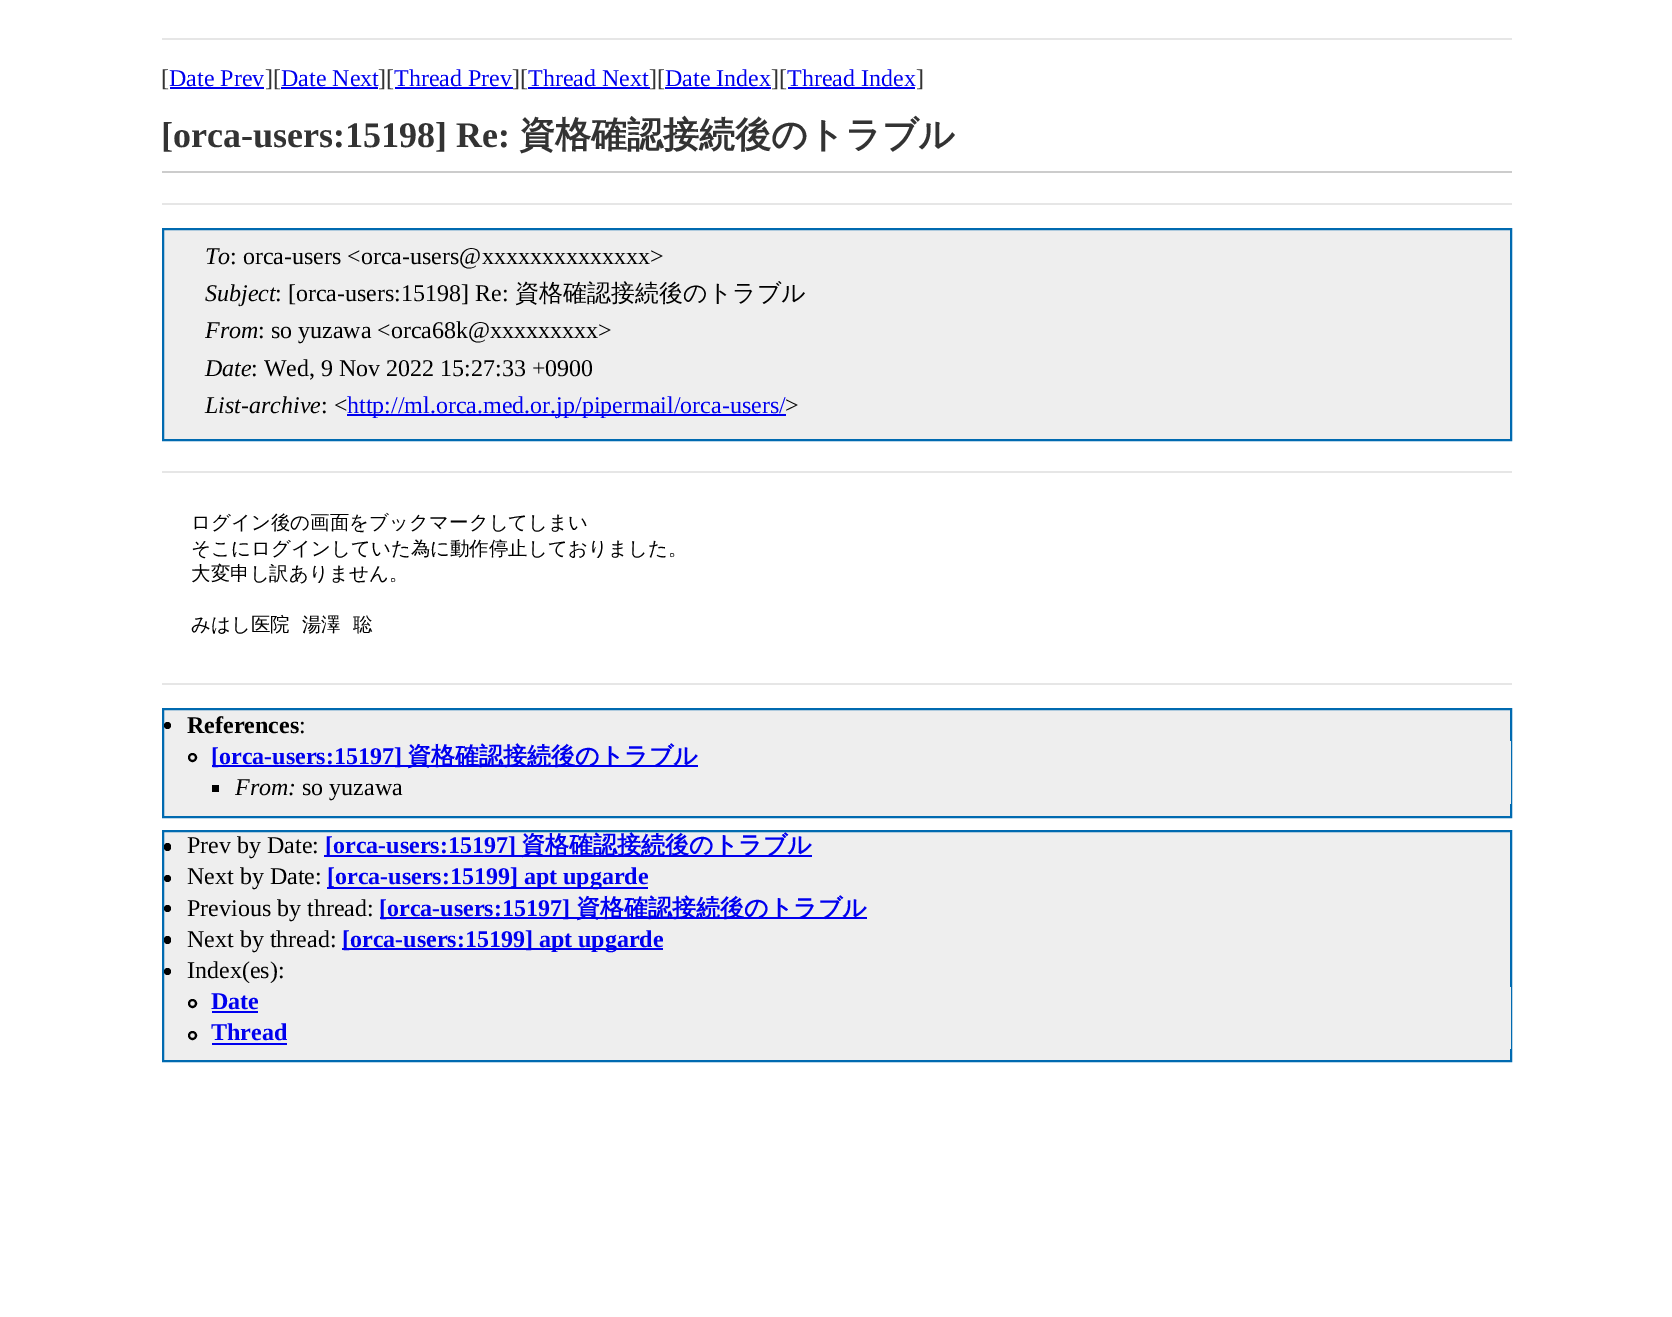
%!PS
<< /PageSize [1672 1317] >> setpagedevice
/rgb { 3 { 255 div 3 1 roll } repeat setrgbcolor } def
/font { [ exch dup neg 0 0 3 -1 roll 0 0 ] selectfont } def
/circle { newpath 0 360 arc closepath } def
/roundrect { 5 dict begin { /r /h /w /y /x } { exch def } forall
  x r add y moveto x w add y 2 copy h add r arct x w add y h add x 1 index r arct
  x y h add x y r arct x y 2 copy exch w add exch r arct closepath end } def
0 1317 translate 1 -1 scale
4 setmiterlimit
255 255 255 rgb
0 0 1672 1317 rectfill
[
  [162 38 1350 2 230 230 230]
  [170 87 94 2 0 0 238]
  [281 87 97 2 0 0 238]
  [395 87 118 2 0 0 238]
  [528 87 122 2 0 0 238]
  [665 87 106 2 0 0 238]
  [788 87 127 2 0 0 238]
  [162 171 1350 2 204 204 204]
  [162 203 1350 2 230 230 230]
] { aload pop rgb rectfill } forall
238 238 238 rgb
163 229 moveto 1511 229 lineto 1511 440 lineto 163 440 lineto closepath gsave fill grestore
0 106 176 rgb
2 setlinewidth
stroke
[
  [347 414 439 2 0 0 238]
  [162 471 1350 2 230 230 230]
  [162 683 1350 2 230 230 230]
] { aload pop rgb rectfill } forall
238 238 238 rgb
163 709 moveto 1511 709 lineto 1511 817 lineto 163 817 lineto closepath gsave fill grestore
0 106 176 rgb
stroke
0 0 0 rgb
167.5 725.5 3.5 circle fill
238 238 238 rgb
1510 741 1 63 rectfill
0 0 0 rgb
192.5 757.5 3.5 circle stroke
0 0 238 rgb
212 765 486 2 rectfill
0 0 0 rgb
212 785 7 7 rectfill
238 238 238 rgb
163 831 moveto 1511 831 lineto 1511 1061 lineto 163 1061 lineto closepath gsave fill grestore
0 106 176 rgb
stroke
0 0 0 rgb
164 843 7 8 3.5 roundrect fill
0 0 238 rgb
324 855 488 2 rectfill
0 0 0 rgb
167.5 878.5 3.5 circle fill
0 0 238 rgb
327 887 321 2 rectfill
0 0 0 rgb
167.5 908.5 3.5 circle fill
0 0 238 rgb
380 917 487 2 rectfill
0 0 0 rgb
164 936 7 8 3.5 roundrect fill
0 0 238 rgb
342 948 321 2 rectfill
0 0 0 rgb
167.5 971.5 3.5 circle fill
238 238 238 rgb
1510 987 1 62 rectfill
0 0 0 rgb
192.5 1003.5 3.5 circle stroke
0 0 238 rgb
212 1011 46 2 rectfill
0 0 0 rgb
192.5 1035.5 3.5 circle stroke
0 0 238 rgb
212 1043 75 2 rectfill
/LiberationSerif-Regular 24 font
51 51 51 rgb
161 86 moveto ([) show
0 0 238 rgb
169 86 moveto (Date Prev) show
51 51 51 rgb
265 86 moveto (][) show
0 0 238 rgb
281 86 moveto (Date Next) show
51 51 51 rgb
378 86 moveto (][) show
0 0 238 rgb
394 86 moveto (Thread Prev) show
51 51 51 rgb
512 86 moveto (][) show
0 0 238 rgb
528 86 moveto (Thread Next) show
51 51 51 rgb
649 86 moveto (][) show
0 0 238 rgb
665 86 moveto (Date Index) show
51 51 51 rgb
771 86 moveto (][) show
0 0 238 rgb
787 86 moveto (Thread Index) show
51 51 51 rgb
916 86 moveto (]) show
/LiberationSerif-Bold 36 font
161 147 moveto ([orca-users:15198] Re:) show
/WenQuanYiZenHei-Bold 36 font
519 147 moveto (資格確認接続後のトラブル) show
/LiberationSerif-Italic 24 font
0 0 0 rgb
205 264 moveto (To) show
/LiberationSerif-Regular 24 font
230 264 moveto (: orca-users <orca-users@xxxxxxxxxxxxxx>) show
/LiberationSerif-Italic 24 font
205 301 moveto (Subject) show
/LiberationSerif-Regular 24 font
275 301 moveto (: [orca-users:15198] Re:) show
/WenQuanYiZenHei-Medium 24 font
515 301 moveto (資格確認接続後のトラブル) show
/LiberationSerif-Italic 24 font
205 338 moveto (From) show
/LiberationSerif-Regular 24 font
258 338 moveto (: so yuzawa <orca68k@xxxxxxxxx>) show
/LiberationSerif-Italic 24 font
205 376 moveto (Date) show
/LiberationSerif-Regular 24 font
251 376 moveto (: Wed, 9 Nov 2022 15:27:33 +0900) show
/LiberationSerif-Italic 24 font
205 413 moveto (List-archive) show
/LiberationSerif-Regular 24 font
321 413 moveto (: <) show
0 0 238 rgb
347 413 moveto (http://ml.orca.med.or.jp/pipermail/orca-users/) show
0 0 0 rgb
785 413 moveto (>) show
/WenQuanYiZenHei-Medium 19.5 font
[
  [(ログイン後の画面をブックマークしてしまい) 191 529]
  [(そこにログインしていた為に動作停止しておりました。) 191 555]
  [(大変申し訳ありません。) 191 580]
] { aload pop moveto show } forall
191 631 moveto 6 0 32 (みはし医院 湯澤 聡) widthshow
/LiberationSerif-Bold 24 font
187 733 moveto (References) show
/LiberationSerif-Regular 24 font
299 733 moveto (:) show
/LiberationSerif-Bold 24 font
0 0 238 rgb
211 764 moveto ([orca-users:15197]) show
/WenQuanYiZenHei-Bold 24 font
407 764 moveto (資格確認接続後のトラブル) show
/LiberationSerif-Italic 24 font
0 0 0 rgb
235 795 moveto (From:) show
/LiberationSerif-Regular 24 font
302 795 moveto (so yuzawa) show
187 853 moveto (Prev by Date:) show
/LiberationSerif-Bold 24 font
0 0 238 rgb
325 853 moveto ([orca-users:15197]) show
/WenQuanYiZenHei-Bold 24 font
521 853 moveto (資格確認接続後のトラブル) show
/LiberationSerif-Regular 24 font
0 0 0 rgb
187 884 moveto (Next by Date:) show
/LiberationSerif-Bold 24 font
0 0 238 rgb
327 884 moveto ([orca-users:15199] apt upgarde) show
/LiberationSerif-Regular 24 font
0 0 0 rgb
187 916 moveto (Previous by thread:) show
/LiberationSerif-Bold 24 font
0 0 238 rgb
379 916 moveto ([orca-users:15197]) show
/WenQuanYiZenHei-Bold 24 font
576 916 moveto (資格確認接続後のトラブル) show
/LiberationSerif-Regular 24 font
0 0 0 rgb
187 947 moveto (Next by thread:) show
/LiberationSerif-Bold 24 font
0 0 238 rgb
342 947 moveto ([orca-users:15199] apt upgarde) show
/LiberationSerif-Regular 24 font
0 0 0 rgb
187 978 moveto (Index\(es\):) show
/LiberationSerif-Bold 24 font
0 0 238 rgb
211 1009 moveto (Date) show
211 1040 moveto (Thread) show
showpage
